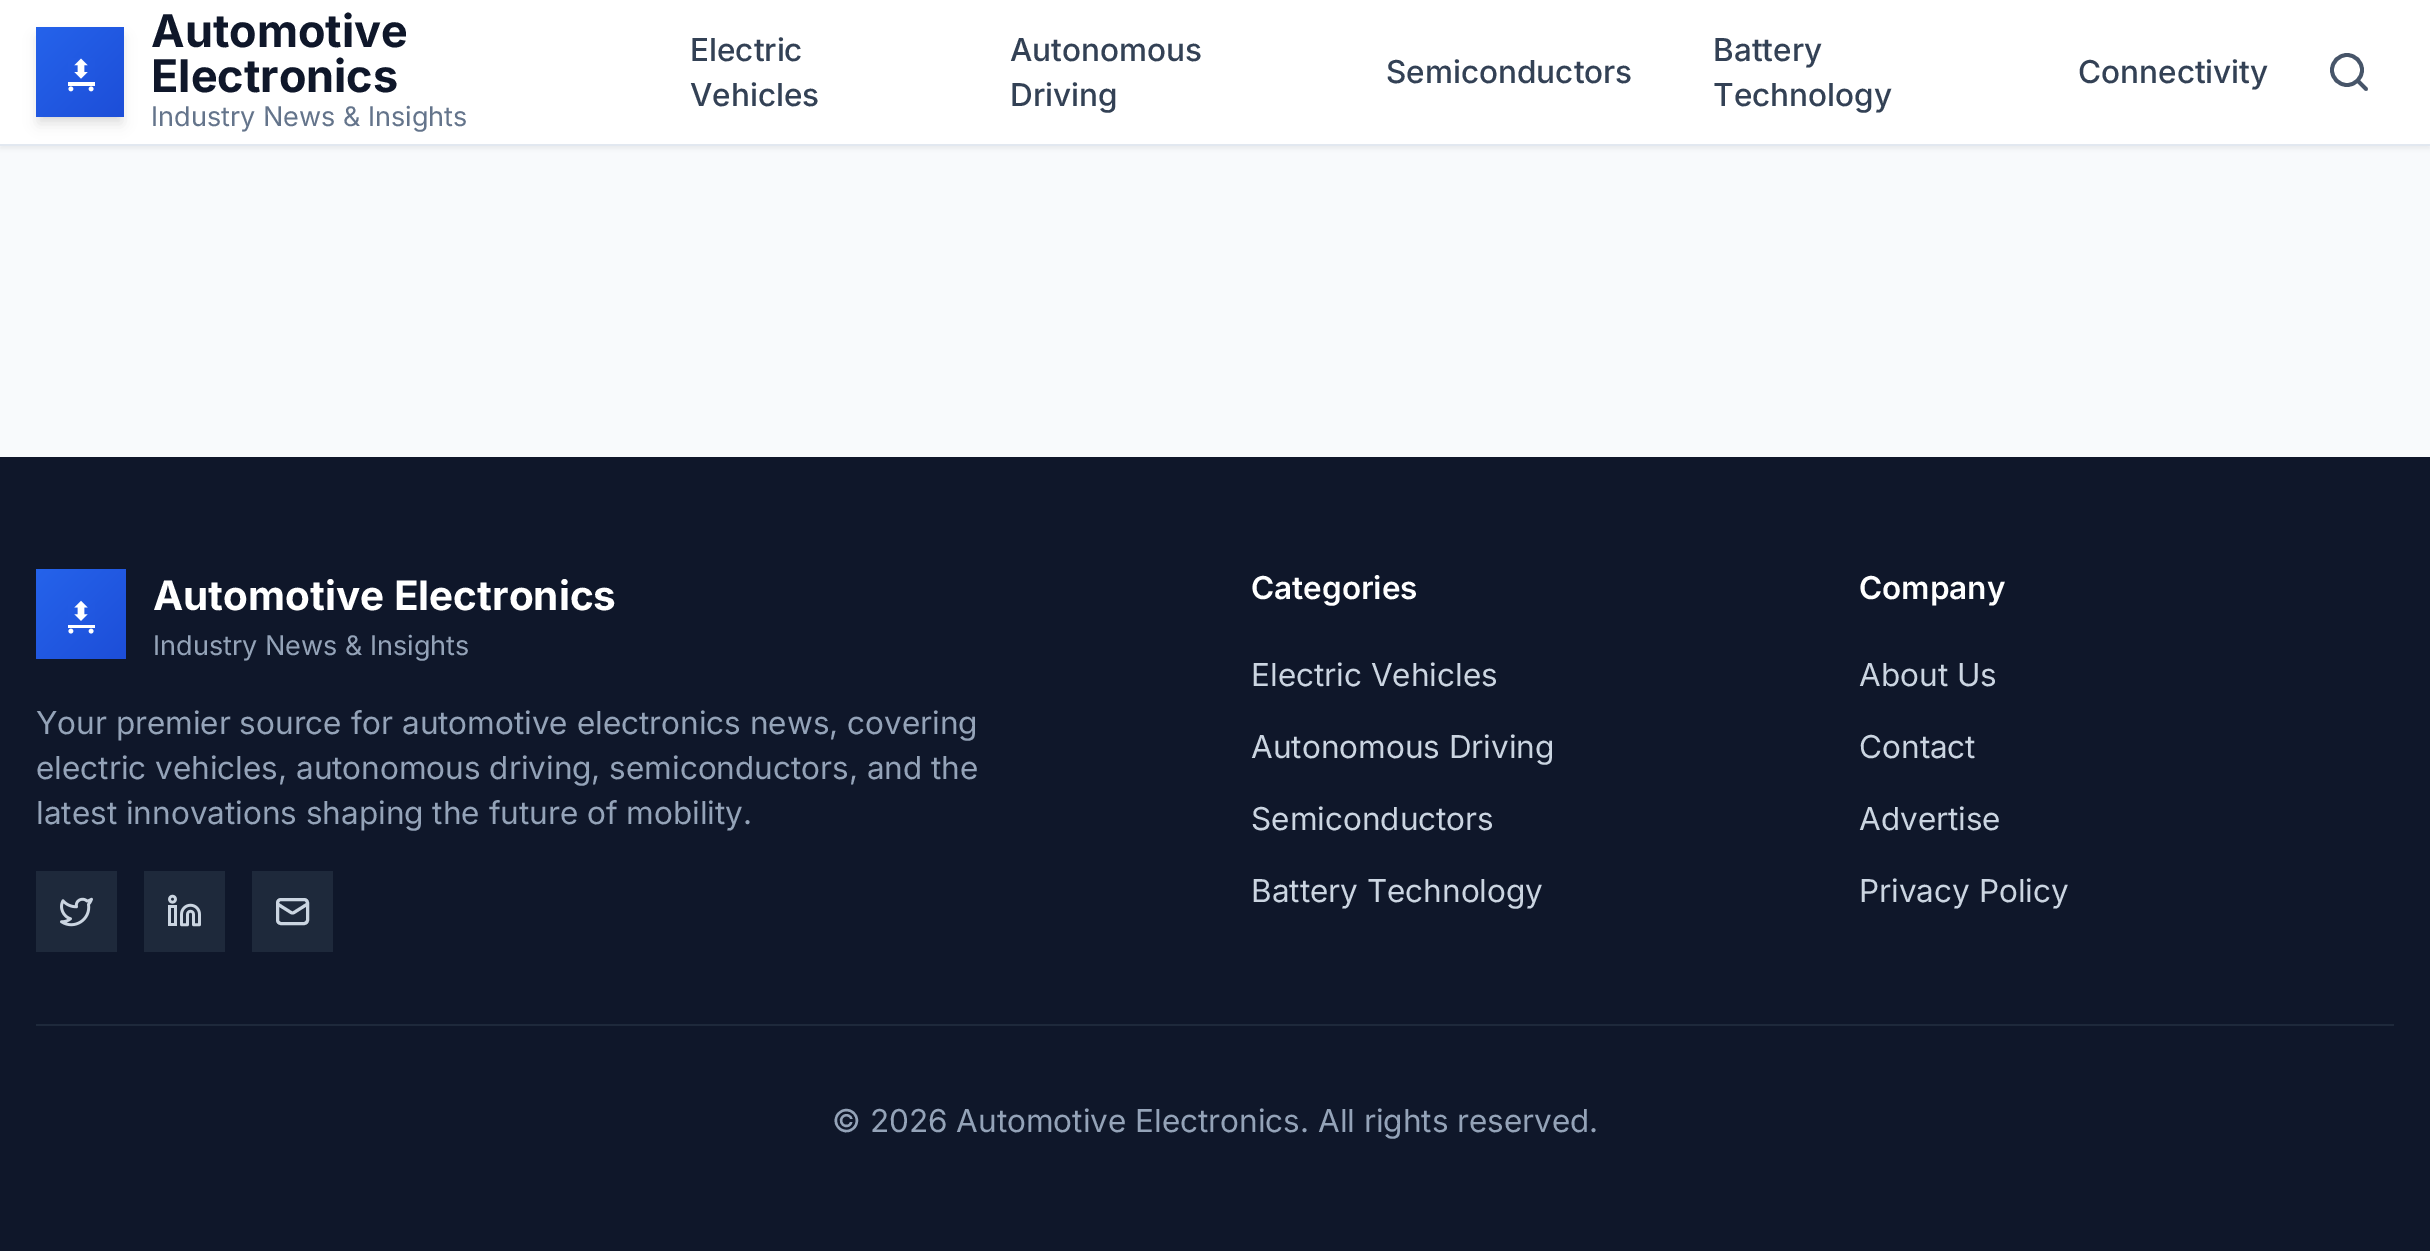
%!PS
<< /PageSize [2430 1251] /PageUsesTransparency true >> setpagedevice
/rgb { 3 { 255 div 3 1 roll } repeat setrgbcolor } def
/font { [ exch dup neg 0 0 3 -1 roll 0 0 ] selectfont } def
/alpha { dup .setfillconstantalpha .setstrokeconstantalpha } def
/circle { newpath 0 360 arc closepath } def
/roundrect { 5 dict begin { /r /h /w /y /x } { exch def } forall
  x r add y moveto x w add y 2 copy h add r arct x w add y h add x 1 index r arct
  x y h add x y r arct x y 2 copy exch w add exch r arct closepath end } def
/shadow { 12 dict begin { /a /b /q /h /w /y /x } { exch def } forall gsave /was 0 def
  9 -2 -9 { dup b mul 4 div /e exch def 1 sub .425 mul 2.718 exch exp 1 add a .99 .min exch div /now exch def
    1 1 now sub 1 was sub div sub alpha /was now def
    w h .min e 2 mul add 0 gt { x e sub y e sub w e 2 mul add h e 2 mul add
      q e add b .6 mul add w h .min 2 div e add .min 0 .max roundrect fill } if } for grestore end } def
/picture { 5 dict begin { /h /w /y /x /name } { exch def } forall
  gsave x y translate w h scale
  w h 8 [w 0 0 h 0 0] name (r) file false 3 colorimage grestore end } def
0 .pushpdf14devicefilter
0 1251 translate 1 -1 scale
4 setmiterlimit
248 250 252 rgb
0 0 2430 1251 rectfill
0 0 0 rgb
0 2 2430 147 0 2 0.05 shadow
255 255 255 rgb
0 0 2430 144 rectfill
226 232 240 rgb
0 144 2430 2 rectfill
0 0 0 rgb
41 36 78 81 0 4.5 0.1 shadow
38 38 84 86 0 7 0.1 shadow
gsave 36 27 moveto 124 27 lineto 124 117 lineto 36 117 lineto closepath clip newpath
<< /ShadingType 2 /ColorSpace /DeviceRGB /Coords [35 28 125 116] /Extend [true true] /Function << /FunctionType 2 /Domain [0 1] /C0 [0.145 0.388 0.922] /C1 [0.114 0.306 0.847] /N 1 >> >> shfill grestore
(img/1.rgb) 68 58 27 34 picture
71 85 105 rgb
3.8 setlinewidth
2347 70 15 circle stroke
1 setlinecap
1 setlinejoin
2366 89 moveto 2358 81 lineto stroke
15 23 42 rgb
0 457 2430 794 rectfill
gsave 36 569 moveto 126 569 lineto 126 659 lineto 36 659 lineto closepath clip newpath
<< /ShadingType 2 /ColorSpace /DeviceRGB /Coords [36 569 126 659] /Extend [true true] /Function << /FunctionType 2 /Domain [0 1] /C0 [0.145 0.388 0.922] /C1 [0.114 0.306 0.847] /N 1 >> >> shfill grestore
(img/2.rgb) 68 600 27 34 picture
30 41 59 rgb
36 871 81 81 rectfill
(img/3.rgb) 60 897 33 30 picture
144 871 81 81 rectfill
(img/4.rgb) 168 894 33 33 picture
252 871 81 81 rectfill
203 213 225 rgb
3 setlinewidth
0 setlinecap
0 setlinejoin
277.5 899.5 30 24 3.5 roundrect stroke
1 setlinecap
1 setlinejoin
307.5 904 moveto 294 912.5 lineto 293 913 292 913 291 912.5 curveto 277.5 904 lineto stroke
30 41 59 rgb
36 1024 2358 2 rectfill
/Inter-Bold 45 font
15 23 42 rgb
151 47 moveto (Automotive) show
151 92 moveto (Electronics) show
/Inter-Regular 27 font
100 116 139 rgb
151 126 moveto (Industry News & Insights) show
/Inter-Medium 31.5 font
51 65 85 rgb
[
  [(Electric) 690 61]
  [(Vehicles) 690 106]
  [(Autonomous) 1010 61]
  [(Driving) 1010 106]
  [(Semiconductors) 1386 83]
  [(Battery) 1713 61]
  [(Technology) 1713 106]
  [(Connectivity) 2078 83]
] { aload pop moveto show } forall
/Inter-Bold 40.5 font
255 255 255 rgb
153 610 moveto (Automotive Electronics) show
/Inter-Regular 27 font
148 163 184 rgb
153 655 moveto (Industry News & Insights) show
/Inter-Regular 31.5 font
[
  [(Your premier source for automotive electronics news, covering) 36 734]
  [(electric vehicles, autonomous driving, semiconductors, and the) 36 779]
  [(latest innovations shaping the future of mobility.) 36 824]
] { aload pop moveto show } forall
/Inter-SemiBold 31.5 font
255 255 255 rgb
1251 599 moveto (Categories) show
/Inter-Regular 31.5 font
203 213 225 rgb
[
  [(Electric Vehicles) 1251 686]
  [(Autonomous Driving) 1251 758]
  [(Semiconductors) 1251 830]
  [(Battery Technology) 1251 902]
] { aload pop moveto show } forall
/Inter-SemiBold 31.5 font
255 255 255 rgb
1859 599 moveto (Company) show
/Inter-Regular 31.5 font
203 213 225 rgb
[
  [(About Us) 1859 686]
  [(Contact) 1859 758]
  [(Advertise) 1859 830]
  [(Privacy Policy) 1859 902]
] { aload pop moveto show } forall
148 163 184 rgb
832 1132 moveto (© 2026 Automotive Electronics. All rights reserved.) show
.poppdf14devicefilter showpage
